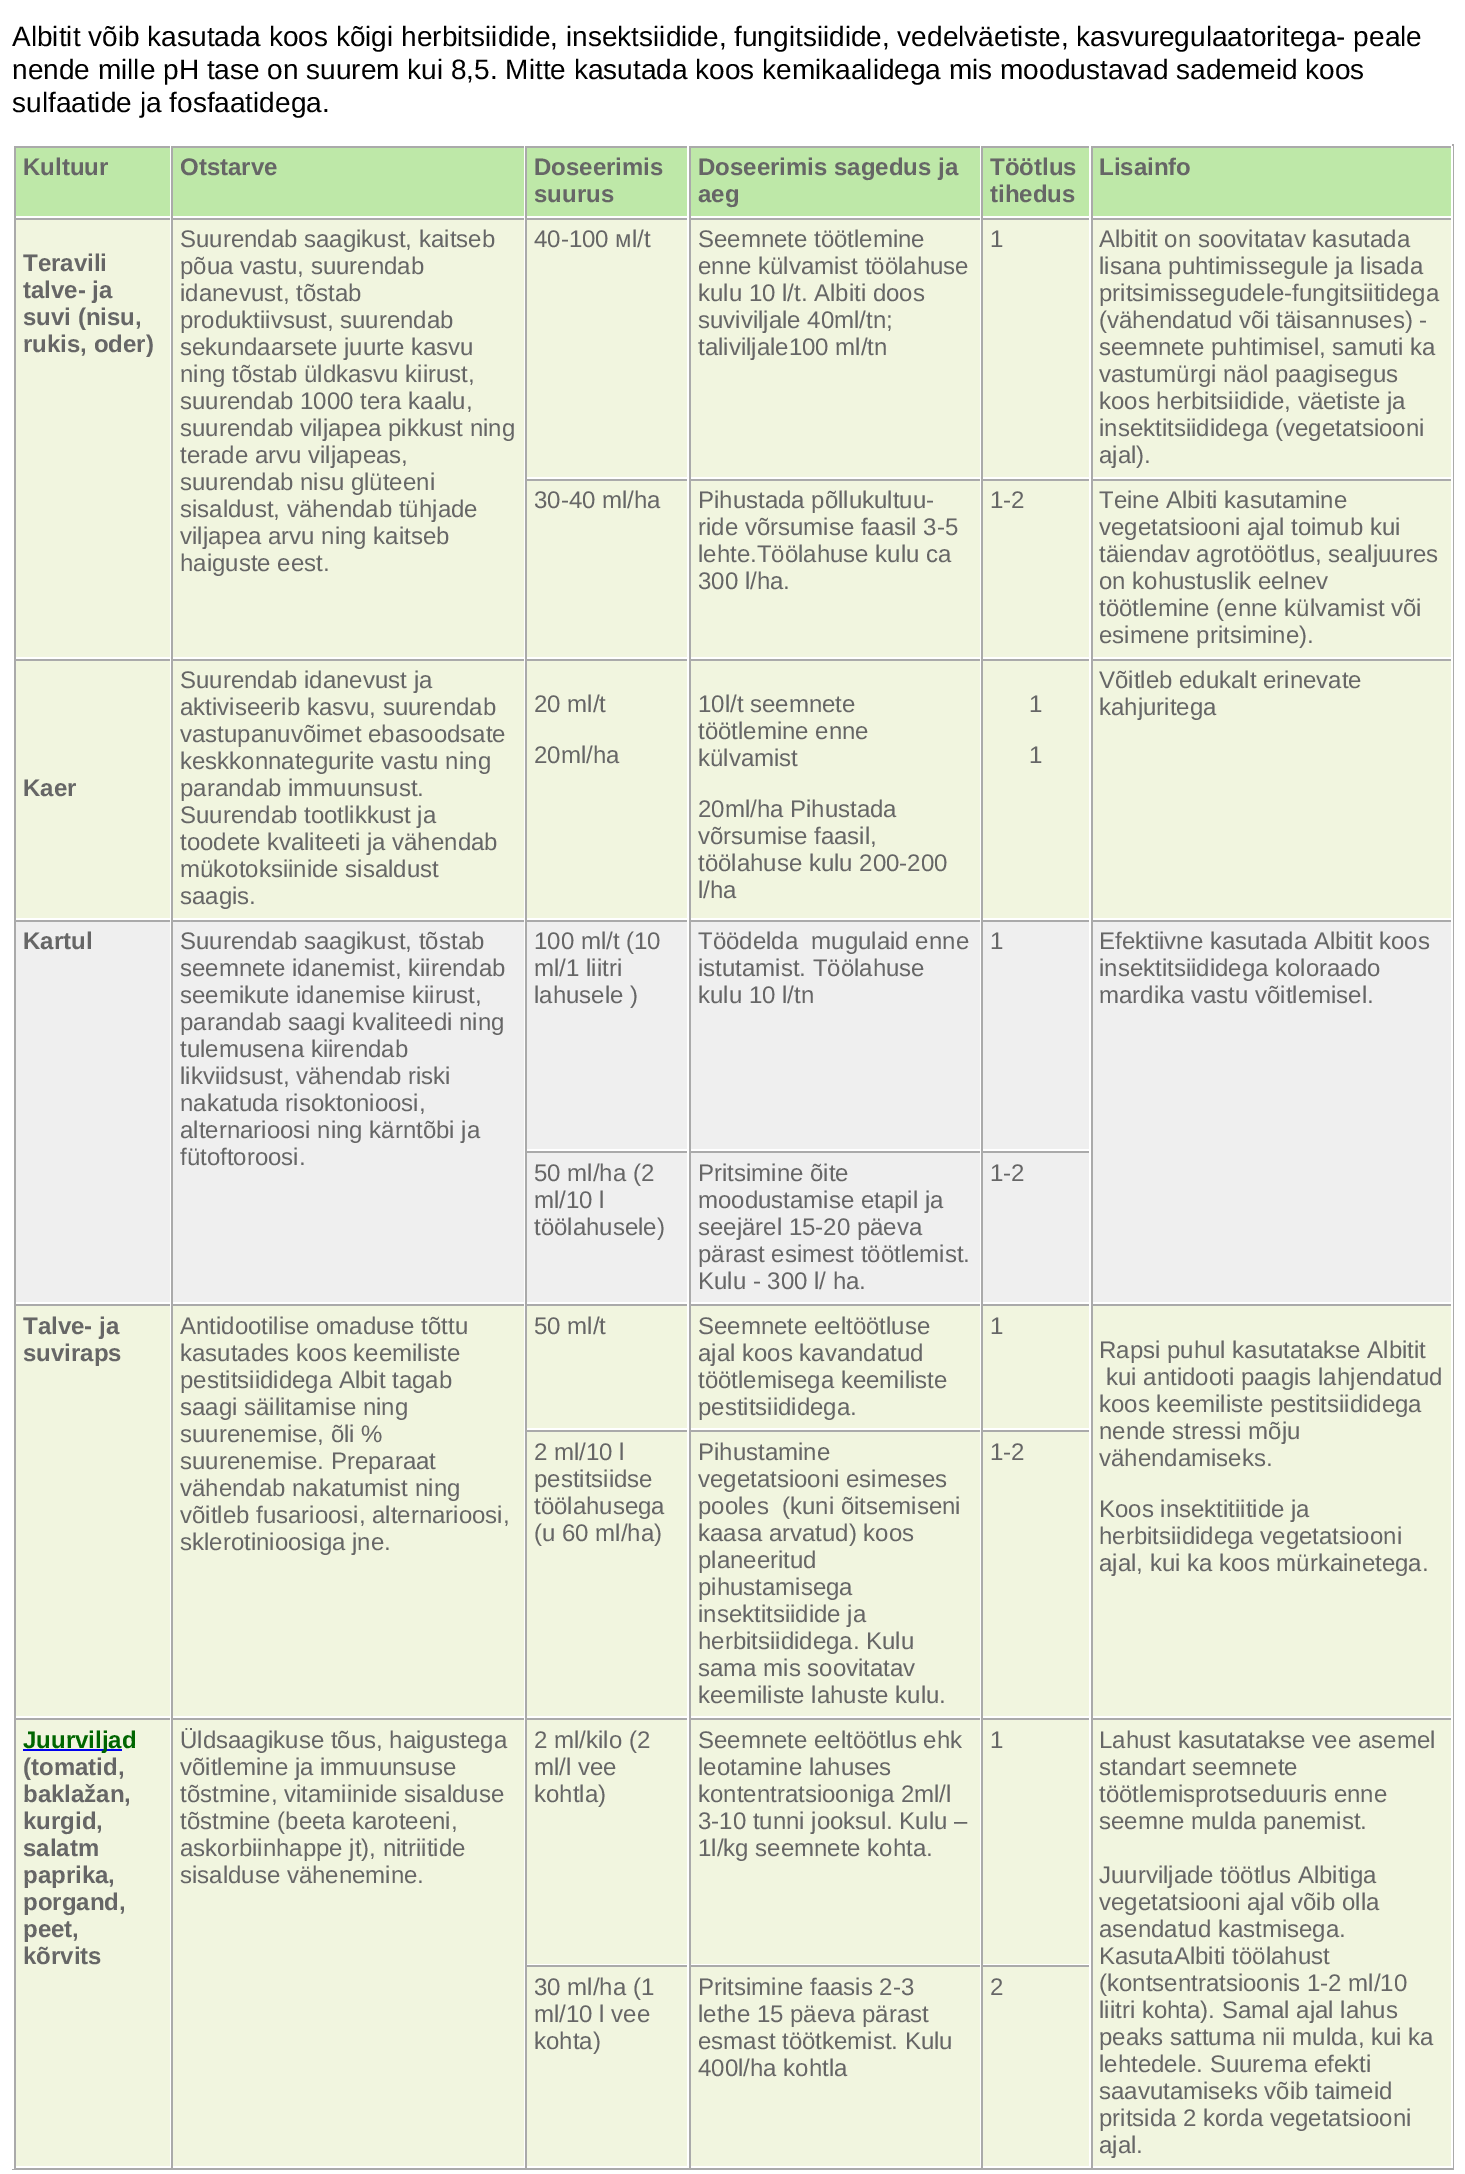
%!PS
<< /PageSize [1465 2174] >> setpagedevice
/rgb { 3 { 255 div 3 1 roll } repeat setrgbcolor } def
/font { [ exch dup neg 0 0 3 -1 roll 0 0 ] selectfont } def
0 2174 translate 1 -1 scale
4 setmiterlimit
255 255 255 rgb
0 0 1465 2174 rectfill
[
  [16 922 1435 380 239 239 239]
  [1452 144 2 2025 170 170 170]
  [12 2168 1442 2 170 170 170]
  [12 2168 2 1 255 255 255]
  [16 148 154 68 190 232 168]
  [14 146 1438 2 170 170 170]
  [170 146 1 2 255 255 255]
  [14 146 2 72 170 170 170]
  [173 148 351 68 190 232 168]
  [524 146 1 2 255 255 255]
  [171 146 2 72 170 170 170]
  [527 148 160 68 190 232 168]
  [687 146 2 2 255 255 255]
  [525 146 2 72 170 170 170]
  [691 148 289 68 190 232 168]
  [980 146 1 2 255 255 255]
  [689 146 2 72 170 170 170]
  [983 148 106 68 190 232 168]
  [1089 146 2 2 255 255 255]
  [981 146 2 72 170 170 170]
  [1093 148 358 68 190 232 168]
  [1451 146 2 72 255 255 255]
  [1091 146 2 72 170 170 170]
  [173 220 351 437 241 245 223]
  [14 218 1438 2 170 170 170]
  [524 218 1 2 255 255 255]
  [171 218 2 441 170 170 170]
  [527 220 160 257 241 245 223]
  [687 218 2 2 255 255 255]
  [525 218 2 261 170 170 170]
  [691 220 289 257 241 245 223]
  [980 218 1 2 255 255 255]
  [689 218 2 261 170 170 170]
  [983 220 106 257 241 245 223]
  [1089 218 2 2 255 255 255]
  [981 218 2 261 170 170 170]
  [1093 220 358 257 241 245 223]
  [1451 218 2 261 255 255 255]
  [1091 218 2 261 170 170 170]
  [16 220 154 437 241 245 223]
  [170 218 1 2 255 255 255]
  [14 218 2 441 170 170 170]
  [527 481 160 176 241 245 223]
  [525 479 927 2 170 170 170]
  [687 479 2 2 255 255 255]
  [525 479 2 180 170 170 170]
  [691 481 289 176 241 245 223]
  [980 479 1 2 255 255 255]
  [689 479 2 180 170 170 170]
  [983 481 106 176 241 245 223]
  [1089 479 2 2 255 255 255]
  [981 479 2 180 170 170 170]
  [1093 481 358 176 241 245 223]
  [1451 479 2 180 255 255 255]
  [1091 479 2 180 170 170 170]
  [173 661 351 257 241 245 223]
  [14 659 1438 2 170 170 170]
  [524 659 1 2 255 255 255]
  [171 659 2 261 170 170 170]
  [527 661 160 257 241 245 223]
  [687 659 2 2 255 255 255]
  [525 659 2 261 170 170 170]
  [691 661 289 257 241 245 223]
  [980 659 1 2 255 255 255]
  [689 659 2 261 170 170 170]
  [983 661 106 257 241 245 223]
  [1089 659 2 2 255 255 255]
  [981 659 2 261 170 170 170]
  [1093 661 358 257 241 245 223]
  [1451 659 2 261 255 255 255]
  [1091 659 2 261 170 170 170]
  [16 661 154 257 241 245 223]
  [170 659 1 2 255 255 255]
  [14 659 2 261 170 170 170]
  [14 920 1438 2 170 170 170]
  [170 920 1 384 255 255 255]
  [14 920 2 384 170 170 170]
  [524 920 1 384 255 255 255]
  [171 920 2 384 170 170 170]
  [687 920 2 231 255 255 255]
  [525 1149 164 2 255 255 255]
  [525 920 2 231 170 170 170]
  [980 920 1 231 255 255 255]
  [689 1149 292 2 255 255 255]
  [689 920 2 231 170 170 170]
  [1089 920 2 231 255 255 255]
  [981 1149 110 2 255 255 255]
  [981 920 2 231 170 170 170]
  [1451 920 2 384 255 255 255]
  [1091 920 2 384 170 170 170]
  [525 1151 566 2 170 170 170]
  [687 1151 2 153 255 255 255]
  [525 1151 2 153 170 170 170]
  [980 1151 1 153 255 255 255]
  [689 1151 2 153 170 170 170]
  [1089 1151 2 153 255 255 255]
  [981 1151 2 153 170 170 170]
  [16 1306 154 410 241 245 223]
  [14 1304 1438 2 170 170 170]
  [170 1304 1 2 255 255 255]
  [14 1304 2 414 170 170 170]
  [173 1306 351 410 241 245 223]
  [524 1304 1 2 255 255 255]
  [171 1304 2 414 170 170 170]
  [527 1306 160 122 241 245 223]
  [687 1304 2 2 255 255 255]
  [525 1304 2 126 170 170 170]
  [691 1306 289 122 241 245 223]
  [980 1304 1 2 255 255 255]
  [689 1304 2 126 170 170 170]
  [983 1306 106 122 241 245 223]
  [1089 1304 2 2 255 255 255]
  [981 1304 2 126 170 170 170]
  [1093 1306 358 410 241 245 223]
  [1451 1304 2 414 255 255 255]
  [1091 1304 2 414 170 170 170]
  [527 1432 160 284 241 245 223]
  [525 1430 566 2 170 170 170]
  [687 1430 2 2 255 255 255]
  [525 1430 2 288 170 170 170]
  [691 1432 289 284 241 245 223]
  [980 1430 1 2 255 255 255]
  [689 1430 2 288 170 170 170]
  [983 1432 106 284 241 245 223]
  [1089 1430 2 2 255 255 255]
  [981 1430 2 288 170 170 170]
  [16 1720 154 446 241 245 223]
  [14 1718 1438 2 170 170 170]
  [170 1718 1 2 255 255 255]
  [14 1718 2 450 170 170 170]
  [23 1749 99 2 0 0 238]
  [173 1720 351 446 241 245 223]
  [524 1718 1 2 255 255 255]
  [171 1718 2 450 170 170 170]
  [527 1720 160 244 241 245 223]
  [687 1718 2 2 255 255 255]
  [525 1718 2 247 170 170 170]
  [691 1720 289 244 241 245 223]
  [980 1718 1 2 255 255 255]
  [689 1718 2 247 170 170 170]
  [983 1720 106 244 241 245 223]
  [1089 1718 2 2 255 255 255]
  [981 1718 2 247 170 170 170]
  [1093 1720 358 446 241 245 223]
  [1451 1718 2 450 255 255 255]
  [1091 1718 2 450 170 170 170]
  [527 1967 160 199 241 245 223]
  [525 1965 566 2 170 170 170]
  [687 1965 2 2 255 255 255]
  [525 1965 2 203 170 170 170]
  [691 1967 289 199 241 245 223]
  [980 1965 1 2 255 255 255]
  [689 1965 2 203 170 170 170]
  [983 1967 106 199 241 245 223]
  [1089 1965 2 2 255 255 255]
  [981 1965 2 203 170 170 170]
] { aload pop rgb rectfill } forall
/LiberationSans-Regular 28 font
0 0 0 rgb
[
  [(Albitit võib kasutada koos kõigi herbitsiidide, insektsiidide, fungitsiidide, vedelväetiste, kasvuregulaatoritega- peale) 12 46]
  [(nende mille pH tase on suurem kui 8,5. Mitte kasutada koos kemikaalidega mis moodustavad sademeid koos) 12 79]
  [(sulfaatide ja fosfaatidega.) 12 112]
] { aload pop moveto show } forall
/LiberationSans-Bold 24 font
102 102 102 rgb
[
  [(Kultuur) 23 175]
  [(Otstarve) 180 175]
  [(Doseerimis) 534 175]
  [(suurus) 534 202]
  [(Doseerimis sagedus ja) 698 175]
  [(aeg) 698 202]
  [(Töötlus) 990 175]
  [(tihedus) 990 202]
  [(Lisainfo) 1099 175]
] { aload pop moveto show } forall
/LiberationSans-Regular 24 font
[
  [(Suurendab saagikust, kaitseb) 180 247]
  [(põua vastu, suurendab) 180 274]
  [(idanevust, tõstab) 180 301]
  [(produktiivsust, suurendab) 180 328]
  [(sekundaarsete juurte kasvu) 180 355]
  [(ning tõstab üldkasvu kiirust,) 180 382]
  [(suurendab 1000 tera kaalu,) 180 409]
  [(suurendab viljapea pikkust ning) 180 436]
  [(terade arvu viljapeas,) 180 463]
  [(suurendab nisu glüteeni) 180 490]
  [(sisaldust, vähendab tühjade) 180 517]
  [(viljapea arvu ning kaitseb) 180 544]
  [(haiguste eest.) 180 571]
  [(40-100 мl/t) 534 247]
  [(Seemnete töötlemine) 698 247]
  [(enne külvamist töölahuse) 698 274]
  [(kulu 10 l/t. Albiti doos) 698 301]
  [(suviviljale 40ml/tn;) 698 328]
  [(taliviljale100 ml/tn) 698 355]
  [(1) 990 247]
  [(Albitit on soovitatav kasutada) 1099 247]
  [(lisana puhtimissegule ja lisada) 1099 274]
  [(pritsimissegudele-fungitsiitidega) 1099 301]
  [(\(vähendatud või täisannuses\) -) 1099 328]
  [(seemnete puhtimisel, samuti ka) 1099 355]
  [(vastumürgi näol paagisegus) 1099 382]
  [(koos herbitsiidide, väetiste ja) 1099 409]
  [(insektitsiididega \(vegetatsiooni) 1099 436]
  [(ajal\).) 1099 463]
] { aload pop moveto show } forall
/LiberationSans-Bold 24 font
[
  [(Teravili) 23 271]
  [(talve- ja) 23 298]
  [(suvi \(nisu,) 23 325]
  [(rukis, oder\)) 23 352]
] { aload pop moveto show } forall
/LiberationSans-Regular 24 font
[
  [(30-40 ml/ha) 534 508]
  [(Pihustada põllukultuu-) 698 508]
  [(ride võrsumise faasil 3-5) 698 535]
  [(lehte.Töölahuse kulu ca) 698 562]
  [(300 l/ha.) 698 589]
  [(1-2) 990 508]
  [(Teine Albiti kasutamine) 1099 508]
  [(vegetatsiooni ajal toimub kui) 1099 535]
  [(täiendav agrotöötlus, sealjuures) 1099 562]
  [(on kohustuslik eelnev) 1099 589]
  [(töötlemine \(enne külvamist või) 1099 616]
  [(esimene pritsimine\).) 1099 643]
  [(Suurendab idanevust ja) 180 688]
  [(aktiviseerib kasvu, suurendab) 180 715]
  [(vastupanuvõimet ebasoodsate) 180 742]
  [(keskkonnategurite vastu ning) 180 769]
  [(parandab immuunsust.) 180 796]
  [(Suurendab tootlikkust ja) 180 823]
  [(toodete kvaliteeti ja vähendab) 180 850]
  [(mükotoksiinide sisaldust) 180 877]
  [(saagis.) 180 904]
  [(20 ml/t) 534 712]
  [(20ml/ha) 534 763]
  [(10l/t seemnete) 698 712]
  [(töötlemine enne) 698 739]
  [(külvamist) 698 766]
  [(20ml/ha Pihustada) 698 817]
  [(võrsumise faasil,) 698 844]
  [(töölahuse kulu 200-200) 698 871]
  [(l/ha) 698 898]
  [(1) 1029 712]
  [(1) 1029 763]
  [(Võitleb edukalt erinevate) 1099 688]
  [(kahjuritega) 1099 715]
] { aload pop moveto show } forall
/LiberationSans-Bold 24 font
23 796 moveto (Kaer) show
23 949 moveto (Kartul) show
/LiberationSans-Regular 24 font
[
  [(Suurendab saagikust, tõstab) 180 949]
  [(seemnete idanemist, kiirendab) 180 976]
  [(seemikute idanemise kiirust,) 180 1003]
  [(parandab saagi kvaliteedi ning) 180 1030]
  [(tulemusena kiirendab) 180 1057]
  [(likviidsust, vähendab riski) 180 1084]
  [(nakatuda risoktonioosi,) 180 1111]
  [(alternarioosi ning kärntõbi ja) 180 1138]
  [(fütoftoroosi.) 180 1165]
  [(100 ml/t \(10) 534 949]
  [(ml/1 liitri) 534 976]
  [(lahusele \)) 534 1003]
  [(Töödelda  mugulaid enne) 698 949]
  [(istutamist. Töölahuse) 698 976]
  [(kulu 10 l/tn) 698 1003]
  [(1) 990 949]
  [(Efektiivne kasutada Albitit koos) 1099 949]
  [(insektitsiididega koloraado) 1099 976]
  [(mardika vastu võitlemisel.) 1099 1003]
  [(50 ml/hа \(2) 534 1181]
  [(ml/10 l) 534 1208]
  [(töölahusele\)) 534 1235]
  [(Pritsimine õite) 698 1181]
  [(moodustamise etapil ja) 698 1208]
  [(seejärel 15-20 päeva) 698 1235]
  [(pärast esimest töötlemist.) 698 1262]
  [(Kulu - 300 l/ ha.) 698 1289]
  [(1-2) 990 1181]
] { aload pop moveto show } forall
/LiberationSans-Bold 24 font
23 1334 moveto (Talve- ja) show
23 1361 moveto (suviraps) show
/LiberationSans-Regular 24 font
[
  [(Antidootilise omaduse tõttu) 180 1334]
  [(kasutades koos keemiliste) 180 1361]
  [(pestitsiididega Albit tagab) 180 1388]
  [(saagi säilitamise ning) 180 1415]
  [(suurenemise, õli %) 180 1442]
  [(suurenemise. Preparaat) 180 1469]
  [(vähendab nakatumist ning) 180 1496]
  [(võitleb fusarioosi, alternarioosi,) 180 1523]
  [(sklerotinioosiga jne.) 180 1550]
  [(50 ml/t) 534 1334]
  [(Seemnete eeltöötluse) 698 1334]
  [(ajal koos kavandatud) 698 1361]
  [(töötlemisega keemiliste) 698 1388]
  [(pestitsiididega.) 698 1415]
  [(1) 990 1334]
  [(Rapsi puhul kasutatakse Albitit) 1099 1358]
  [(kui antidooti paagis lahjendatud) 1106 1385]
  [(koos keemiliste pestitsiididega) 1099 1412]
  [(nende stressi mõju) 1099 1439]
  [(vähendamiseks.) 1099 1466]
  [(Koos insektitiitide ja) 1099 1517]
  [(herbitsiididega vegetatsiooni) 1099 1544]
  [(ajal, kui ka koos mürkainetega.) 1099 1571]
  [(2 ml/10 l) 534 1460]
  [(pestitsiidse) 534 1487]
  [(töölahusega) 534 1514]
  [(\(u 60 ml/ha\)) 534 1541]
  [(Pihustamine) 698 1460]
  [(vegetatsiooni esimeses) 698 1487]
  [(pooles  \(kuni õitsemiseni) 698 1514]
  [(kaasa arvatud\) koos) 698 1541]
  [(planeeritud) 698 1568]
  [(pihustamisega) 698 1595]
  [(insektitsiidide ja) 698 1622]
  [(herbitsiididega. Kulu) 698 1649]
  [(sama mis soovitatav) 698 1676]
  [(keemiliste lahuste kulu.) 698 1703]
  [(1-2) 990 1460]
] { aload pop moveto show } forall
/LiberationSans-Bold 24 font
0 102 0 rgb
23 1748 moveto (Juurviljad) show
102 102 102 rgb
[
  [(\(tomatid,) 23 1775]
  [(baklažan,) 23 1802]
  [(kurgid,) 23 1829]
  [(salatm) 23 1856]
  [(paprika,) 23 1883]
  [(porgand,) 23 1910]
  [(peet,) 23 1937]
  [(kõrvits) 23 1964]
] { aload pop moveto show } forall
/LiberationSans-Regular 24 font
[
  [(Üldsaagikuse tõus, haigustega) 180 1748]
  [(võitlemine ja immuunsuse) 180 1775]
  [(tõstmine, vitamiinide sisalduse) 180 1802]
  [(tõstmine \(beeta karoteeni,) 180 1829]
  [(askorbiinhappe jt\), nitriitide) 180 1856]
  [(sisalduse vähenemine.) 180 1883]
  [(2 ml/kilo \(2) 534 1748]
  [(ml/l vee) 534 1775]
  [(kohtla\)) 534 1802]
  [(Seemnete eeltöötlus ehk) 698 1748]
  [(leotamine lahuses) 698 1775]
  [(kontentratsiooniga 2ml/l) 698 1802]
  [(3-10 tunni jooksul. Kulu –) 698 1829]
  [(1l/kg seemnete kohta.) 698 1856]
  [(1) 990 1748]
  [(Lahust kasutatakse vee asemel) 1099 1748]
  [(standart seemnete) 1099 1775]
  [(töötlemisprotseduuris enne) 1099 1802]
  [(seemne mulda panemist.) 1099 1829]
  [(Juurviljade töötlus Albitiga) 1099 1883]
  [(vegetatsiooni ajal võib olla) 1099 1910]
  [(asendatud kastmisega.) 1099 1937]
  [(KasutaAlbiti töölahust) 1099 1964]
  [(\(kontsentratsioonis 1-2 ml/10) 1099 1991]
  [(liitri kohta\). Samal ajal lahus) 1099 2018]
  [(peaks sattuma nii mulda, kui ka) 1099 2045]
  [(lehtedele. Suurema efekti) 1099 2072]
  [(saavutamiseks võib taimeid) 1099 2099]
  [(pritsida 2 korda vegetatsiooni) 1099 2126]
  [(ajal.) 1099 2153]
  [(30 ml/ha \(1) 534 1995]
  [(ml/10 l vee) 534 2022]
  [(kohta\)) 534 2049]
  [(Pritsimine faasis 2-3) 698 1995]
  [(lethe 15 päeva pärast) 698 2022]
  [(esmast töötkemist. Kulu) 698 2049]
  [(400l/ha kohtla) 698 2076]
  [(2) 990 1995]
] { aload pop moveto show } forall
showpage
